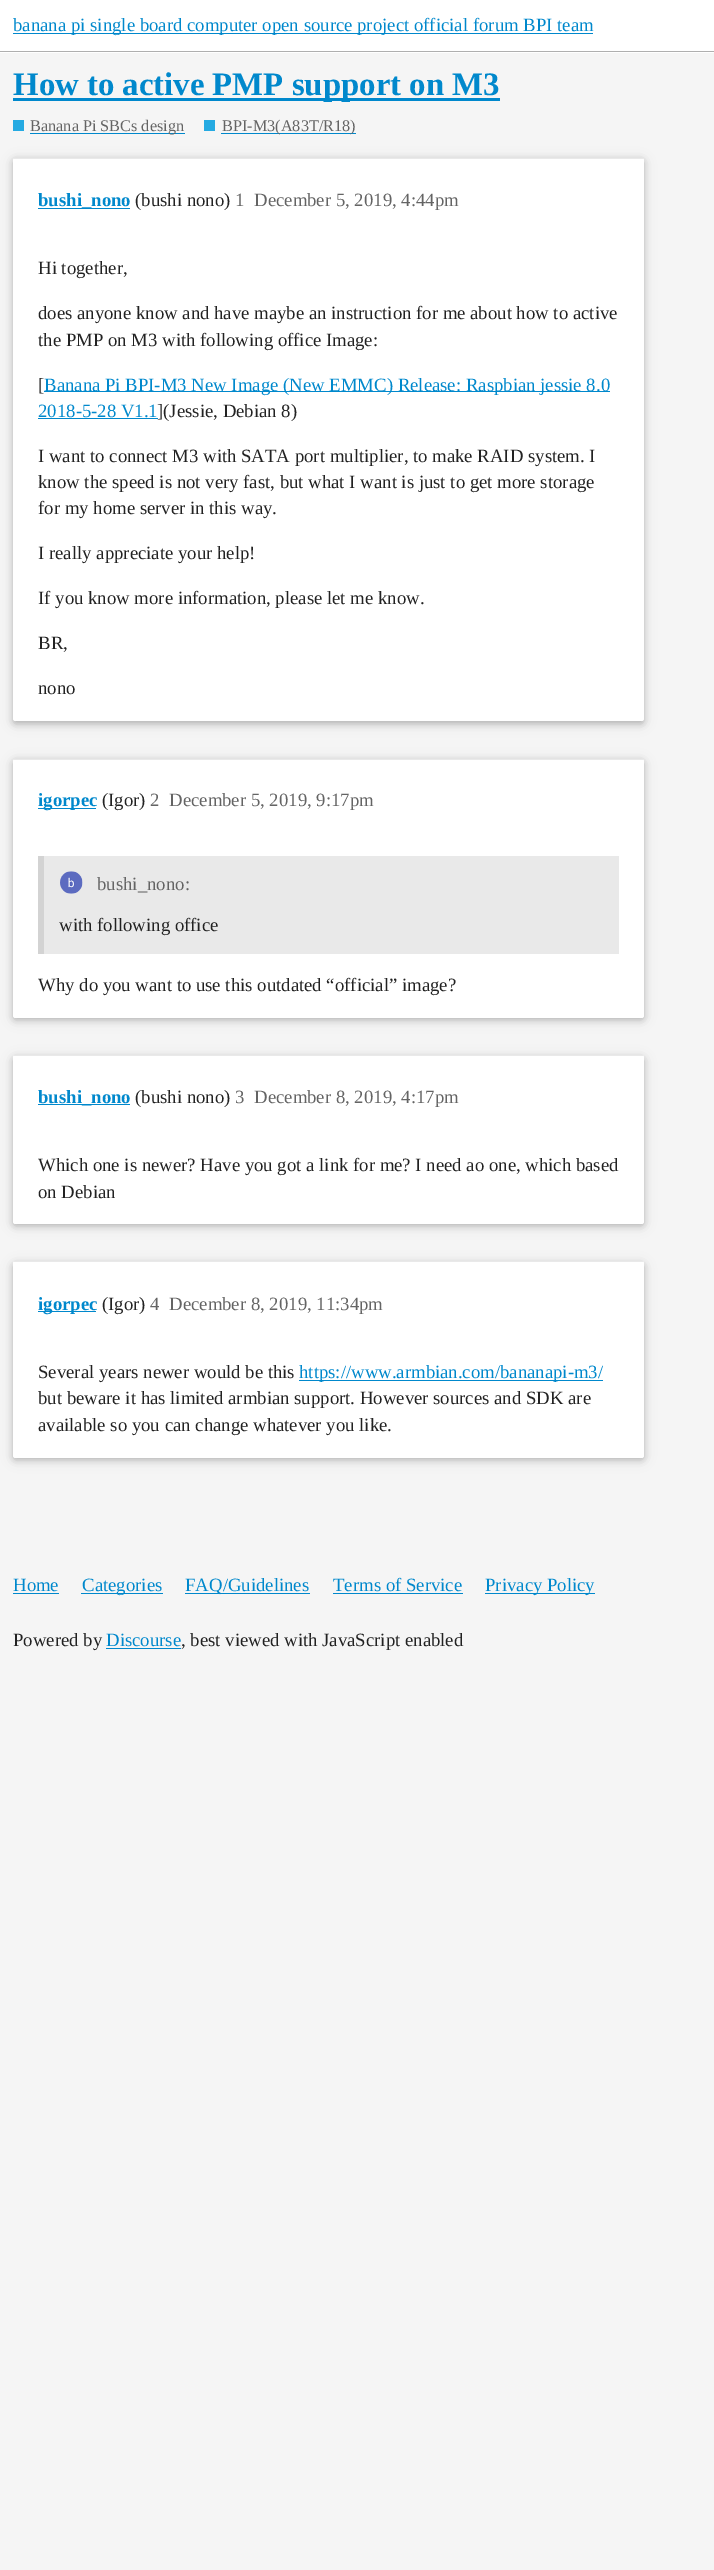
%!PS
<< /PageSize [714 2570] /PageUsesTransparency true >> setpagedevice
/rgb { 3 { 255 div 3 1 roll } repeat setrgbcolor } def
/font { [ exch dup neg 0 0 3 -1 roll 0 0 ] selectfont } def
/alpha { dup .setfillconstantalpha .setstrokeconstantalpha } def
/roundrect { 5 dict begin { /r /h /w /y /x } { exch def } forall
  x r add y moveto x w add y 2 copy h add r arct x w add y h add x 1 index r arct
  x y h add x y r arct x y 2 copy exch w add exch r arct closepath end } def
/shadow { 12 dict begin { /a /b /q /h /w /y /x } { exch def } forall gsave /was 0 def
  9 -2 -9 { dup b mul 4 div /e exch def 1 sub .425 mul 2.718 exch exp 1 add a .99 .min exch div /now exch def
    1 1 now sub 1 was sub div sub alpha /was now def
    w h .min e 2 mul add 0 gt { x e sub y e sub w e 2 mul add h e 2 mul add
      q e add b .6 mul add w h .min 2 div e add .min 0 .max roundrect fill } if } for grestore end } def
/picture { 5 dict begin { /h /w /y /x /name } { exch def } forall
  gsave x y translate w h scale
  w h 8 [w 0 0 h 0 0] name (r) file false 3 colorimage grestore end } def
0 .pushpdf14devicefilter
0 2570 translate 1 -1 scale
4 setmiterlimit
245 245 245 rgb
0 0 714 2570 rectfill
[
  [0 0 714 53 255 255 255]
  [0 51 714 1 175 175 175]
  [13 33 580 1 0 136 204]
  [13 98 487 3 0 136 204]
  [13 120 11 11 37 170 226]
  [30 133 155 1 0 136 204]
  [204 120 11 11 37 170 226]
  [221 133 135 1 0 136 204]
] { aload pop rgb rectfill } forall
0 0 0 rgb
13 160 631 564 2.5 6 0.12 shadow
13 160 631 564 2.5 3 0.16 shadow
255 255 255 rgb
13 158 631 563 2.5 roundrect fill
[
  [14 158 629 1 233 233 233]
  [38 208 92 1 0 136 204]
  [44 391 566 1 0 136 204]
  [38 418 120 1 0 136 204]
] { aload pop rgb rectfill } forall
0 0 0 rgb
13 761 631 259 2.5 6 0.12 shadow
13 761 631 259 2.5 3 0.16 shadow
255 255 255 rgb
13 759 631 259 2.5 roundrect fill
[
  [14 759 629 1 233 233 233]
  [38 808 58 1 0 136 204]
  [44 856 575 98 233 233 233]
  [38 856 6 98 211 211 211]
] { aload pop rgb rectfill } forall
(img/1.rgb) 60 871 23 23 picture
0 0 0 rgb
13 1058 631 168 2.5 6 0.12 shadow
13 1058 631 168 2.5 3 0.16 shadow
255 255 255 rgb
13 1055 631 169 2.5 roundrect fill
233 233 233 rgb
14 1055 629 1 rectfill
0 136 204 rgb
38 1104 92 1 rectfill
0 0 0 rgb
13 1264 631 196 2.5 6 0.12 shadow
13 1264 631 196 2.5 3 0.16 shadow
255 255 255 rgb
13 1261 631 197 2.5 roundrect fill
[
  [14 1261 629 1 233 233 233]
  [38 1311 58 1 0 136 204]
  [299 1380 304 1 0 136 204]
  [13 1593 46 1 0 136 204]
  [81 1593 82 1 0 136 204]
  [185 1593 125 1 0 136 204]
  [333 1593 130 1 0 136 204]
  [485 1593 110 1 0 136 204]
  [106 1648 75 1 0 136 204]
] { aload pop rgb rectfill } forall
/LiberationSerif-Regular 18.75 font
13 31 moveto (banana pi single board computer open source project official forum BPI team) show
/LiberationSerif-Bold 32.8 font
13 95 moveto (How to active PMP support on M3) show
/LiberationSerif-Regular 16.25 font
100 100 100 rgb
30 131 moveto (Banana Pi SBCs design) show
222 131 moveto (BPI-M3\(A83T/R18\)) show
/LiberationSerif-Bold 18.75 font
0 136 204 rgb
38 206 moveto (bushi_nono) show
/LiberationSerif-Regular 18.75 font
34 34 34 rgb
135 206 moveto (\(bushi nono\)) show
100 100 100 rgb
235 206 moveto (1) show
254 206 moveto (December 5, 2019, 4:44pm) show
34 34 34 rgb
[
  [(Hi together,) 38 274]
  [(does anyone know and have maybe an instruction for me about how to active) 38 319]
  [(the PMP on M3 with following office Image:) 38 346]
  [([) 38 391]
] { aload pop moveto show } forall
0 136 204 rgb
44 391 moveto (Banana Pi BPI-M3 New Image \(New EMMC\) Release: Raspbian jessie 8.0) show
38 417 moveto (2018-5-28 V1.1) show
34 34 34 rgb
[
  [(]\(Jessie, Debian 8\)) 157 417]
  [(I want to connect M3 with SATA port multiplier, to make RAID system. I) 38 462]
  [(know the speed is not very fast, but what I want is just to get more storage) 38 488]
  [(for my home server in this way.) 38 514]
  [(I really appreciate your help!) 38 559]
  [(If you know more information, please let me know.) 38 604]
  [(BR,) 38 649]
  [(nono) 38 694]
] { aload pop moveto show } forall
/LiberationSerif-Bold 18.75 font
0 136 204 rgb
38 806 moveto (igorpec) show
/LiberationSerif-Regular 18.75 font
34 34 34 rgb
102 806 moveto (\(Igor\)) show
100 100 100 rgb
[
  [(2) 150 806]
  [(December 5, 2019, 9:17pm) 169 806]
  [(bushi_nono:) 97 890]
] { aload pop moveto show } forall
34 34 34 rgb
59 931 moveto (with following office) show
38 991 moveto (Why do you want to use this outdated “official” image?) show
/LiberationSerif-Bold 18.75 font
0 136 204 rgb
38 1103 moveto (bushi_nono) show
/LiberationSerif-Regular 18.75 font
34 34 34 rgb
135 1103 moveto (\(bushi nono\)) show
100 100 100 rgb
235 1103 moveto (3) show
254 1103 moveto (December 8, 2019, 4:17pm) show
34 34 34 rgb
38 1171 moveto (Which one is newer? Have you got a link for me? I need ao one, which based) show
38 1198 moveto (on Debian) show
/LiberationSerif-Bold 18.75 font
0 136 204 rgb
38 1310 moveto (igorpec) show
/LiberationSerif-Regular 18.75 font
34 34 34 rgb
102 1310 moveto (\(Igor\)) show
100 100 100 rgb
150 1310 moveto (4) show
169 1310 moveto (December 8, 2019, 11:34pm) show
34 34 34 rgb
38 1378 moveto (Several years newer would be this) show
0 136 204 rgb
299 1378 moveto (https://www.armbian.com/bananapi-m3/) show
34 34 34 rgb
38 1404 moveto (but beware it has limited armbian support. However sources and SDK are) show
38 1431 moveto (available so you can change whatever you like.) show
0 136 204 rgb
[
  [(Home) 13 1591]
  [(Categories) 82 1591]
  [(FAQ/Guidelines) 185 1591]
  [(Terms of Service) 333 1591]
  [(Privacy Policy) 485 1591]
] { aload pop moveto show } forall
34 34 34 rgb
13 1646 moveto (Powered by) show
0 136 204 rgb
106 1646 moveto (Discourse) show
34 34 34 rgb
181 1646 moveto (, best viewed with JavaScript enabled) show
.poppdf14devicefilter showpage
